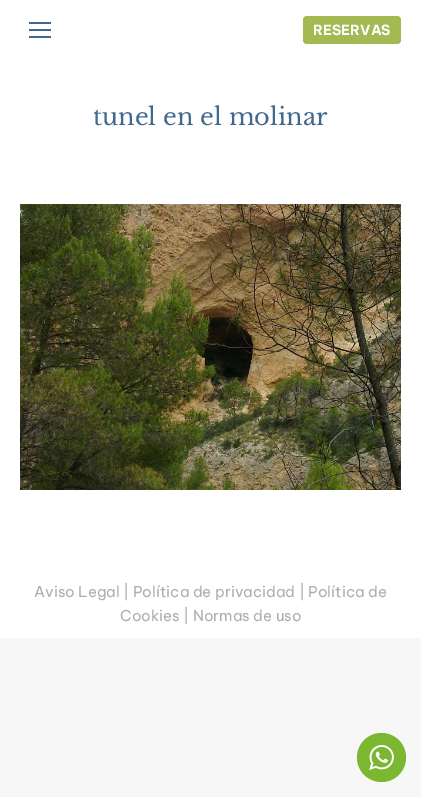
%!PS
<< /PageSize [421 797] >> setpagedevice
/rgb { 3 { 255 div 3 1 roll } repeat setrgbcolor } def
/font { [ exch dup neg 0 0 3 -1 roll 0 0 ] selectfont } def
/circle { newpath 0 360 arc closepath } def
/roundrect { 5 dict begin { /r /h /w /y /x } { exch def } forall
  x r add y moveto x w add y 2 copy h add r arct x w add y h add x 1 index r arct
  x y h add x y r arct x y 2 copy exch w add exch r arct closepath end } def
/picture { 5 dict begin { /h /w /y /x /name } { exch def } forall
  gsave x y translate w h scale
  w h 8 [w 0 0 h 0 0] name (r) file false 3 colorimage grestore end } def
0 797 translate 1 -1 scale
4 setmiterlimit
247 247 247 rgb
0 0 421 797 rectfill
[
  [0 0 421 638 255 255 255]
  [29 22 22 2 65 105 143]
  [29 29 22 2 65 105 143]
  [29 36 22 2 65 105 143]
] { aload pop rgb rectfill } forall
163 185 81 rgb
303 16 98 28 4 roundrect fill
(img/1.rgb) 20 204 381 286 picture
123 183 48 rgb
381.5 757.5 24.5 circle fill
(img/2.rgb) 369 745 25 25 picture
/BeVietnamPro-Bold 14 font
255 255 255 rgb
313 35 moveto (RESERVAS) show
/LibreBaskerville-Regular 24 font
65 105 143 rgb
93 125 moveto (tunel en el molinar) show
/BeVietnamPro-Regular 15 font
173 173 173 rgb
34 597 moveto (Aviso Legal | Política de privacidad | Política de) show
120 621 moveto (Cookies | Normas de uso) show
showpage
